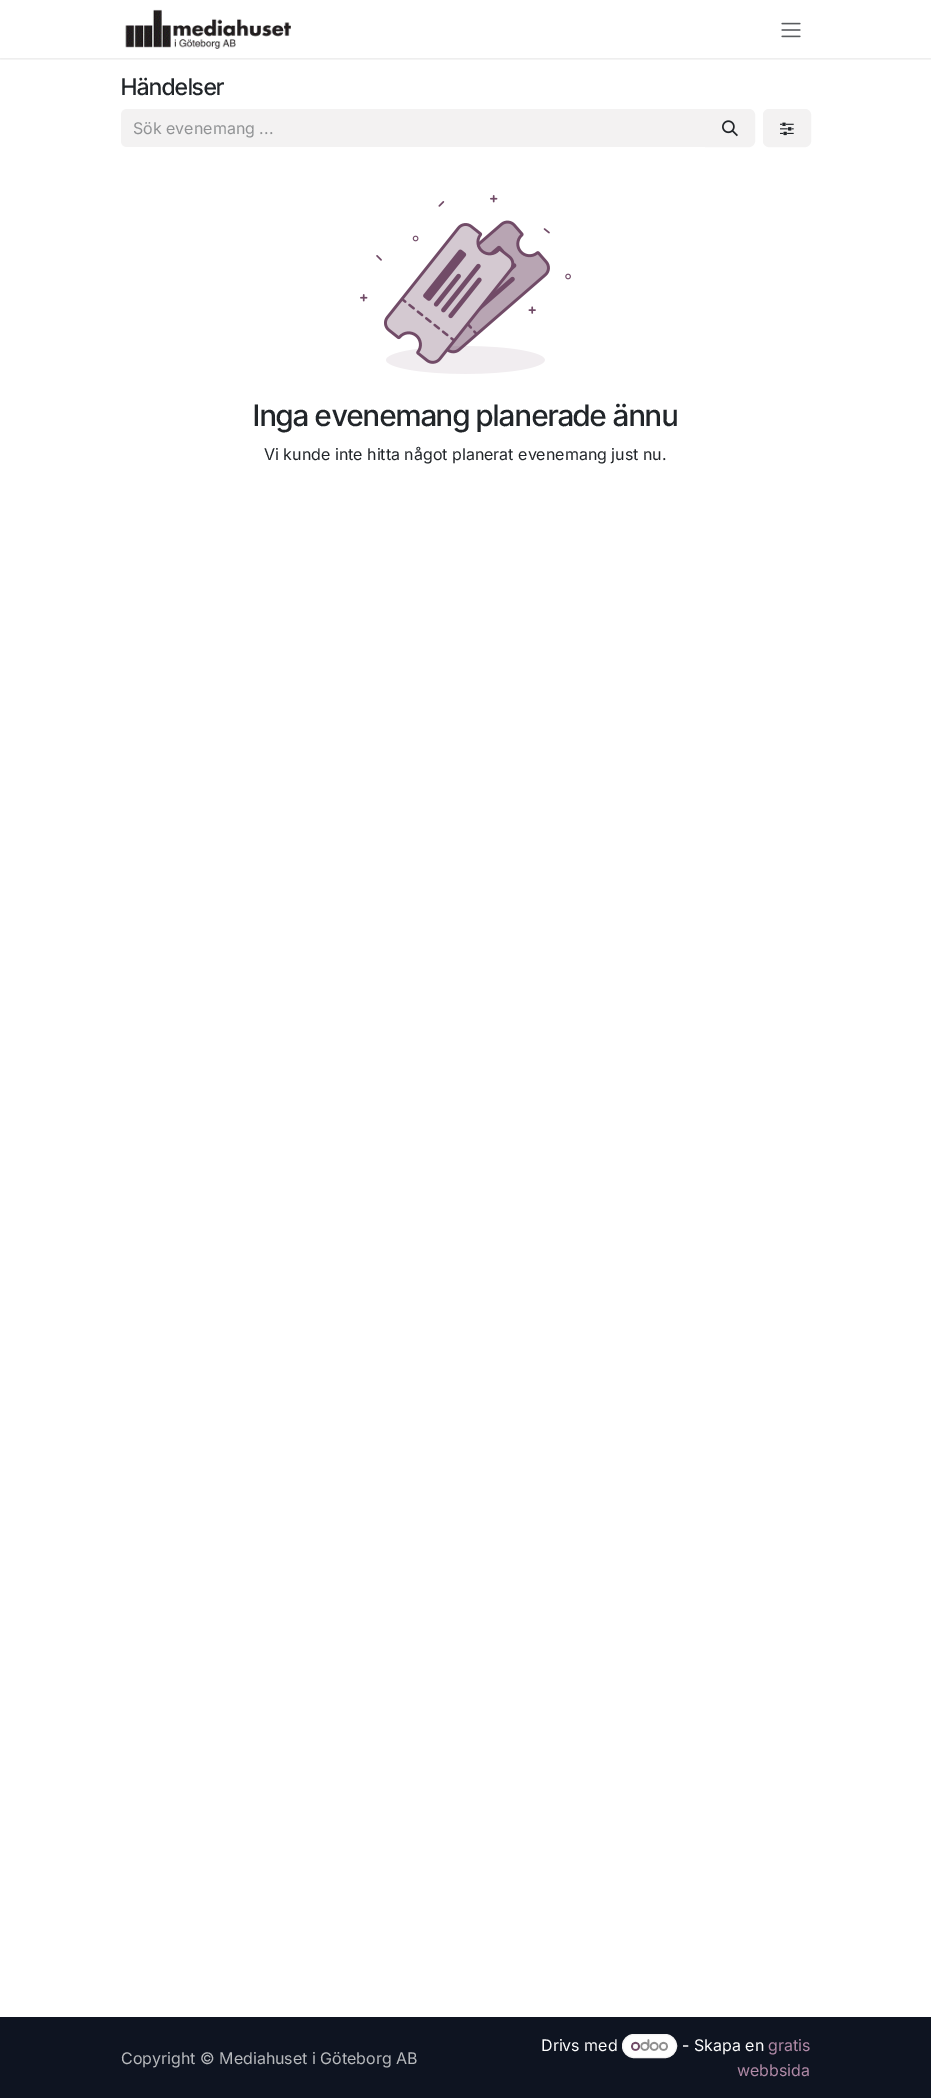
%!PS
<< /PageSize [931 2098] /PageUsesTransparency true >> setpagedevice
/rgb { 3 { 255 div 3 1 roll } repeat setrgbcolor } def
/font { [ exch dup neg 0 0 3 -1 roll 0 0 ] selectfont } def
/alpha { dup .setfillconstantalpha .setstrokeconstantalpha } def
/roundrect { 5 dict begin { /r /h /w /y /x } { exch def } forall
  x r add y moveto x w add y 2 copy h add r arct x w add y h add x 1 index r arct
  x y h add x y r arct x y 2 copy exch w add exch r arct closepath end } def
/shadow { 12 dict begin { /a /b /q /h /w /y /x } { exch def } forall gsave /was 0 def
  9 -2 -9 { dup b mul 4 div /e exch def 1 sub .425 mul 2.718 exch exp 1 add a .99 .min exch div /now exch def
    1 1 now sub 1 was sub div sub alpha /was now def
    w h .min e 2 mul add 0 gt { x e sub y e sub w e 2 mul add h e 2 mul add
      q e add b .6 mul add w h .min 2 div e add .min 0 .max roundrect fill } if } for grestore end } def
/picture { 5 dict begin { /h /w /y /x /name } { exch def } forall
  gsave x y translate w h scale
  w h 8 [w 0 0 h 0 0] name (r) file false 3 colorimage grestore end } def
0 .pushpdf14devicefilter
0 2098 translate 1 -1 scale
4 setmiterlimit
255 255 255 rgb
0 0 931 2098 rectfill
gsave
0 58 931 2 rectclip
0 0 0 rgb
0 1 931 58 0 1.5 0.1 shadow
grestore
(img/1.rgb) 125 9 166 40 picture
(img/2.rgb) 781 22 20 16 picture
243 242 242 rgb
127 109 moveto 706 109 lineto 706 147 lineto 127 147 lineto 123.5 147 121 144.5 121 141 curveto 121 115 lineto 121 111.5 123.5 109 127 109 curveto closepath fill
705.5 109.5 moveto 749 109.5 lineto 752 109.5 754.5 112 754.5 115 curveto 754.5 141 lineto 754.5 144 752 146.5 749 146.5 curveto 705.5 146.5 lineto closepath gsave fill grestore
stroke
(img/3.rgb) 722 120 16 17 picture
763.5 109.5 47 37 5.5 roundrect gsave fill grestore
stroke
(img/4.rgb) 780 122 14 14 picture
(img/5.rgb) 360 195 211 179 picture
14 20 33 rgb
0 2017 931 81 rectfill
254 254 254 rgb
622.5 2034.5 54 23 11.5 roundrect gsave fill grestore
243 242 242 rgb
stroke
(img/6.rgb) 631 2039 37 12 picture
/InterTight-Medium 23 font
33 37 41 rgb
121 95 moveto (Händelser) show
/Inter-Regular 16 font
144 146 148 rgb
133 134 moveto (Sök evenemang ...) show
/InterTight-Medium 29.6 font
33 37 41 rgb
253 426 moveto (Inga evenemang planerade ännu) show
/Inter-Regular 16 font
264 460 moveto (Vi kunde inte hitta något planerat evenemang just nu.) show
183 185 188 rgb
121 2064 moveto (Copyright © Mediahuset i Göteborg AB) show
255 255 255 rgb
541 2051 moveto (Drivs med) show
682 2051 moveto (- Skapa en) show
177 138 167 rgb
768 2051 moveto (gratis) show
737 2076 moveto (webbsida) show
.poppdf14devicefilter showpage
